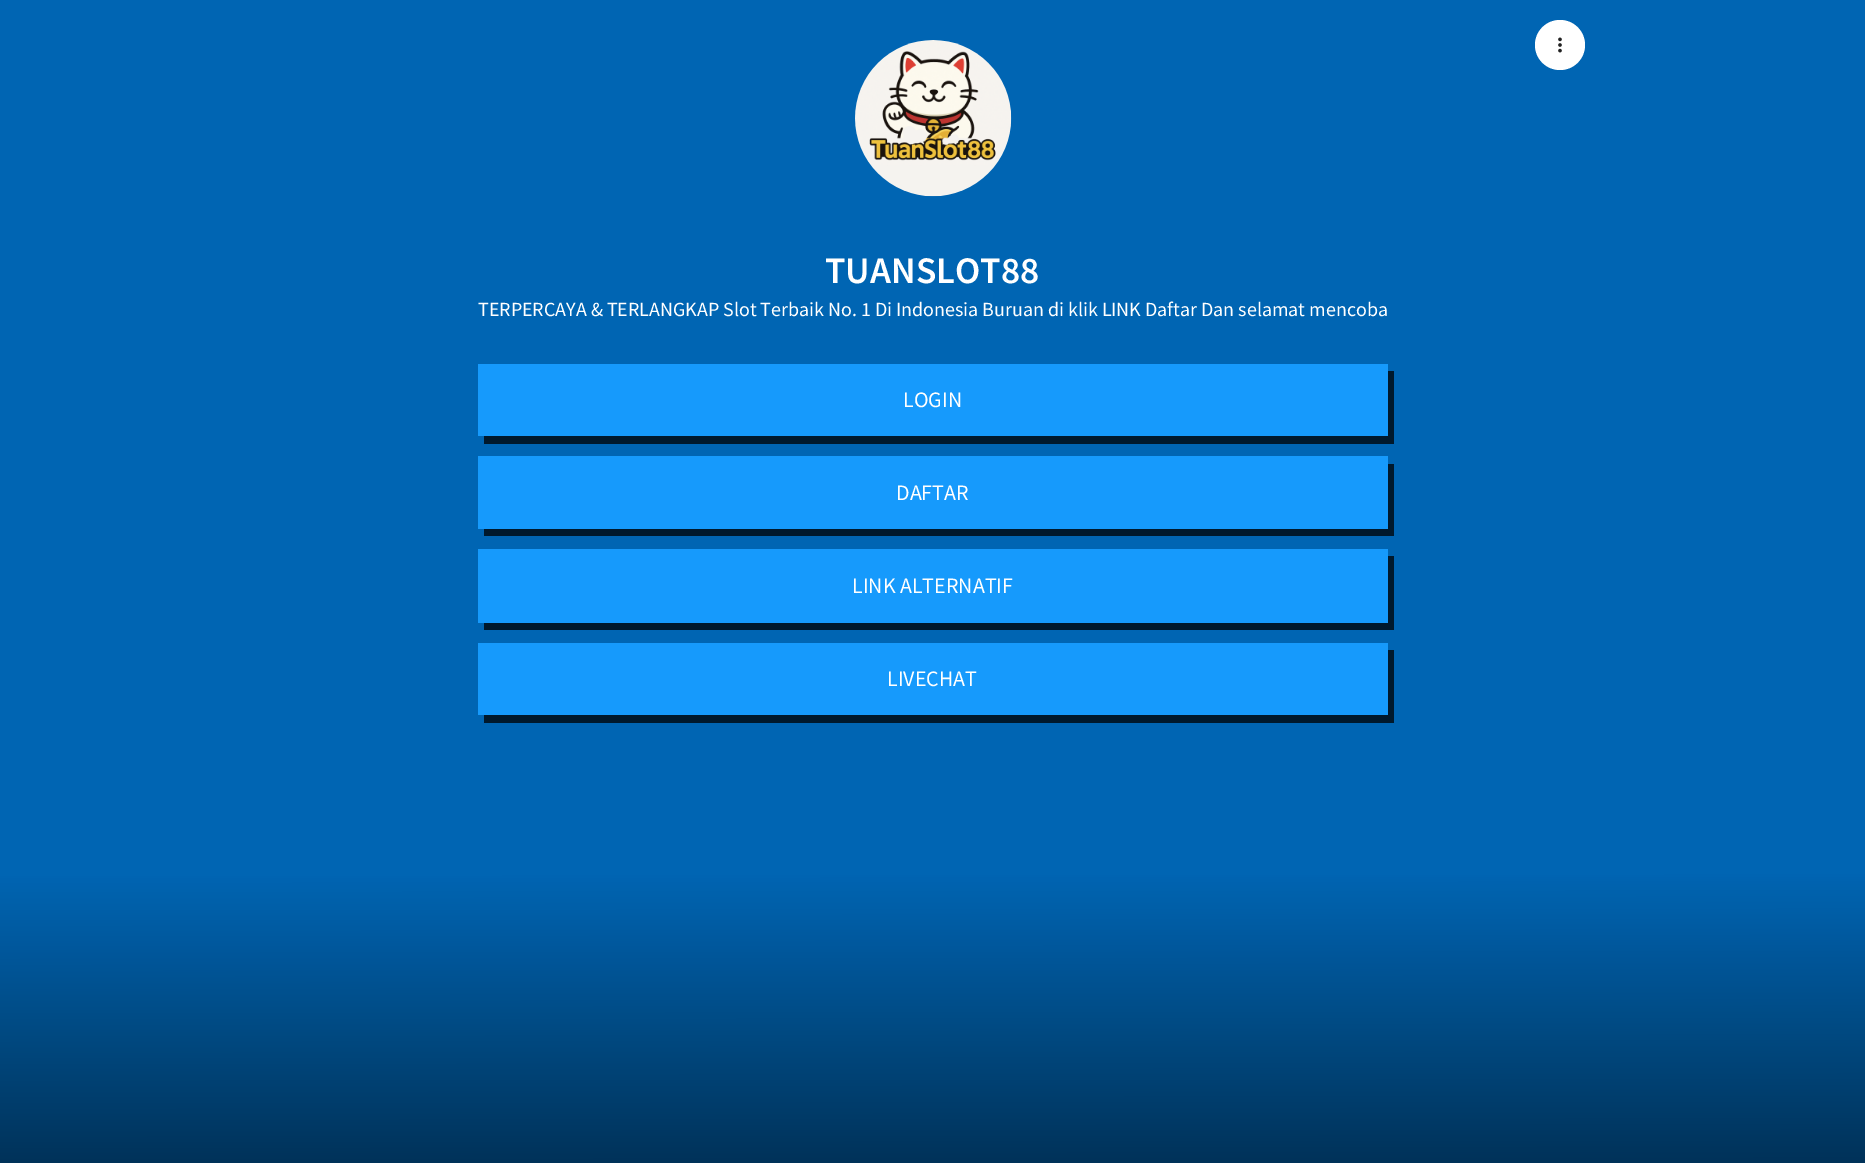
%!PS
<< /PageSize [1865 1163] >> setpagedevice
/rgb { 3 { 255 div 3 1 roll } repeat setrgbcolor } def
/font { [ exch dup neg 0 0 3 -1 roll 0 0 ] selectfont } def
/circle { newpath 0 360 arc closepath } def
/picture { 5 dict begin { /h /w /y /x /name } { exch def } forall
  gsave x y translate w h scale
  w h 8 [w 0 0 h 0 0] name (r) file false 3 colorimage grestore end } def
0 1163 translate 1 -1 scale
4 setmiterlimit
255 255 255 rgb
0 0 1865 1163 rectfill
gsave 0 0 moveto 1865 0 lineto 1865 1163 lineto 0 1163 lineto closepath clip newpath
<< /ShadingType 2 /ColorSpace /DeviceRGB /Coords [932 0 933 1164] /Extend [true true] /Function << /FunctionType 3 /Domain [0 1] /Functions [<< /FunctionType 2 /Domain [0 1] /C0 [0 0.396 0.702] /C1 [0 0.396 0.702] /N 1 >> << /FunctionType 2 /Domain [0 1] /C0 [0 0.396 0.702] /C1 [0 0.196 0.349] /N 1 >>] /Bounds [0.75] /Encode [0 1 0 1] >> >> shfill grestore
1560 45 25 circle fill
(img/1.rgb) 1558 37 4 16 picture
(img/2.rgb) 855 40 157 157 picture
0 25 45 rgb
484 436 moveto 484 444 lineto 1394 444 lineto 1394 371 lineto 1388 371 lineto 1388 436 lineto closepath fill
22 154 252 rgb
478 364 910 72 rectfill
0 25 45 rgb
484 529 moveto 484 536 lineto 1394 536 lineto 1394 464 lineto 1388 464 lineto 1388 529 lineto closepath fill
22 154 252 rgb
478 456 910 73 rectfill
0 25 45 rgb
484 622 moveto 484 630 lineto 1394 630 lineto 1394 556 lineto 1388 556 lineto 1388 622 lineto closepath fill
22 154 252 rgb
478 549 910 74 rectfill
0 25 45 rgb
484 715 moveto 484 723 lineto 1394 723 lineto 1394 650 lineto 1388 650 lineto 1388 715 lineto closepath fill
22 154 252 rgb
478 643 910 72 rectfill
/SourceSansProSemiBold-SemiBold 37.5 font
255 255 255 rgb
825 283 moveto (TUANSLOT88) show
/SourceSansPro-Regular 20 font
478 316 moveto (TERPERCAYA & TERLANGKAP Slot Terbaik No. 1 Di Indonesia Buruan di klik LINK Daftar Dan selamat mencoba) show
/SourceSansPro-Regular 22 font
[
  [(LOGIN) 903 407]
  [(DAFTAR) 896 500]
  [(LINK ALTERNATIF) 852 593]
  [(LIVECHAT) 887 686]
] { aload pop moveto show } forall
showpage
